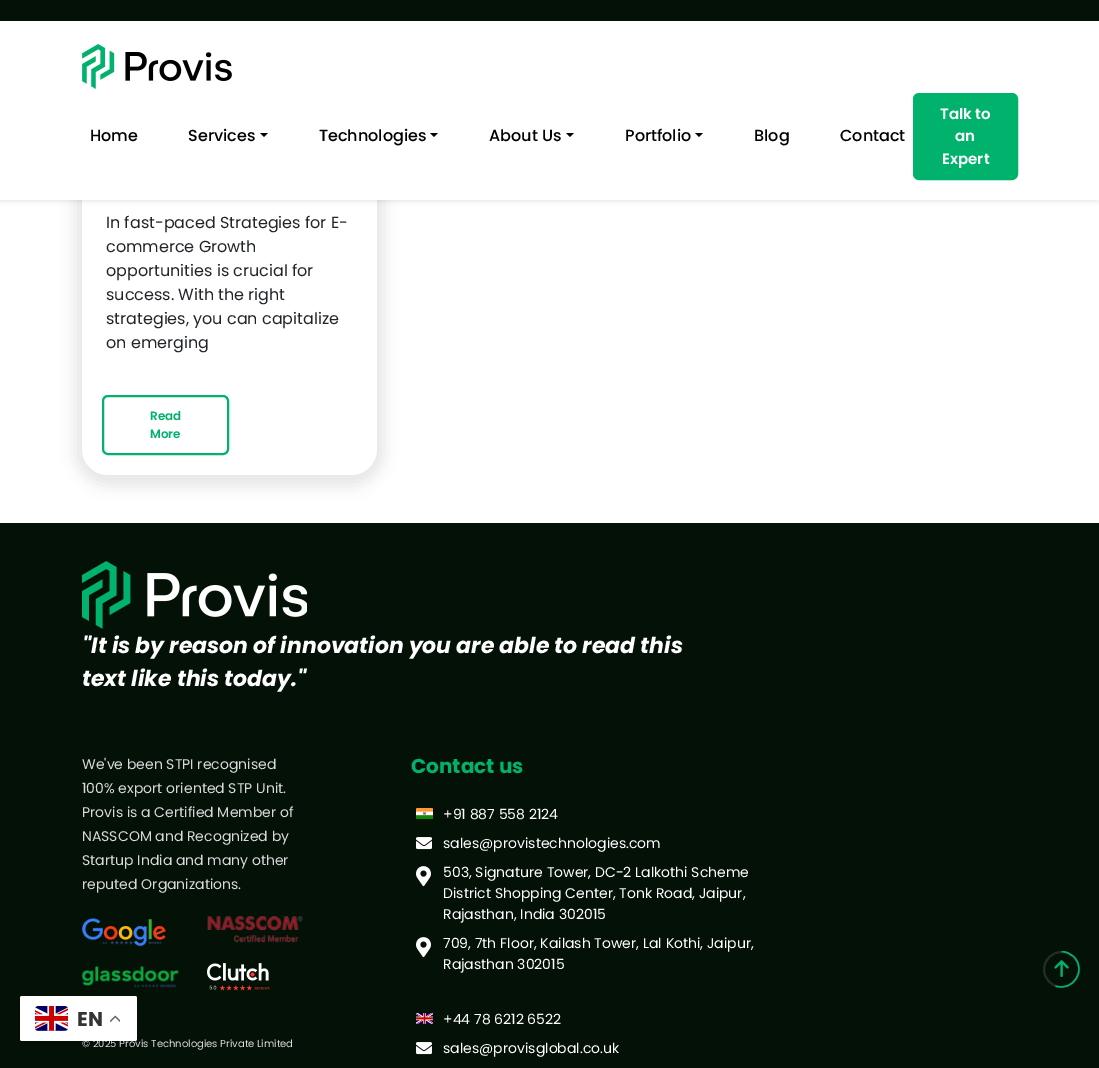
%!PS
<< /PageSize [1099 1068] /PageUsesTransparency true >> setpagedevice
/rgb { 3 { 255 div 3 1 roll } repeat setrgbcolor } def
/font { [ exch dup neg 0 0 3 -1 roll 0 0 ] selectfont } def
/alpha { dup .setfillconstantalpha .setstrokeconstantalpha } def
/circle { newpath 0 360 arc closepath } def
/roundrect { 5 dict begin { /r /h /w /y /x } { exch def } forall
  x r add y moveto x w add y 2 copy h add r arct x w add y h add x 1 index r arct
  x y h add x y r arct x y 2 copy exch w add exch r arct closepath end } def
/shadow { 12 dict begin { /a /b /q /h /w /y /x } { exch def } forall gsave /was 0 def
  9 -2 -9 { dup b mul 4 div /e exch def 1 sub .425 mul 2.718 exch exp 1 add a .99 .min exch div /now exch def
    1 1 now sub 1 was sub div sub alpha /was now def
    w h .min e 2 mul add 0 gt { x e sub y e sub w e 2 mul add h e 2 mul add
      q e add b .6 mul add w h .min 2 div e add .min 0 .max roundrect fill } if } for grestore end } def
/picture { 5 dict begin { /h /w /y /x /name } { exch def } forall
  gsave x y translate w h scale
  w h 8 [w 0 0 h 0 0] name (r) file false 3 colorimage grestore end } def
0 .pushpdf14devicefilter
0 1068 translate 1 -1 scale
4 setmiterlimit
255 255 255 rgb
0 0 1099 1068 rectfill
160 160 160 rgb
75 -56 309 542 33 7.5 0.25 shadow
255 255 255 rgb
82 -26 295 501 26 roundrect fill
0 0 0 rgb
0 2 1099 200 0 2 0.07 shadow
255 255 255 rgb
0 21 1099 179 rectfill
4 17 6 rgb
0 0 1099 21 rectfill
(img/1.rgb) 82 44 150 45 picture
0 0 0 rgb
260 133 moveto 268 133 lineto 264 137 lineto closepath fill
430 133 moveto 438 133 lineto 434 137 lineto closepath fill
566 133 moveto 574 133 lineto 570 137 lineto closepath fill
695 133 moveto 703 133 lineto 699 137 lineto closepath fill
0 178 107 rgb
914 94 103 85 5 roundrect gsave fill grestore
2 setlinewidth
stroke
103 396 125 58 5 roundrect stroke
4 17 6 rgb
0 523 1099 545 rectfill
(img/2.rgb) 82 561 225 68 picture
(img/3.rgb) 82 918 84 29 picture
(img/4.rgb) 207 916 96 27 picture
(img/5.rgb) 82 966 97 22 picture
(img/6.rgb) 207 963 63 28 picture
(img/7.rgb) 416 808 17 11 picture
(img/8.rgb) 416 837 16 13 picture
(img/9.rgb) 416 866 15 21 picture
(img/9.rgb) 416 937 15 21 picture
(img/10.rgb) 416 1013 17 11 picture
(img/8.rgb) 416 1042 16 13 picture
35 45 38 rgb
1061.5 969.5 17.5 circle stroke
gsave
1043 951 37 37 rectclip
0 178 107 rgb
1.4 setlinewidth
1061.5 951.5 moveto 1066 951.5 1070.5 953.5 1074 957 curveto 1087 970 1073 992 1055.5 986 curveto stroke
grestore
(img/11.rgb) 1054 960 15 17 picture
0 0 0 rgb
20 1001 117 45 2 7.5 0.15 shadow
/Poppins-Medium 16 font
[
  [(Home) 90 141]
  [(Services) 188 141]
  [(Technologies) 319 141]
  [(About Us) 489 141]
  [(Portfolio) 625 141]
  [(Blog) 754 141]
  [(Contact) 840 141]
] { aload pop moveto show } forall
/Poppins-SemiBold 15 font
255 255 255 rgb
[
  [(Talk to) 940 119]
  [(an) 955 141]
  [(Expert) 942 164]
] { aload pop moveto show } forall
/Poppins-Regular 16 font
33 37 41 rgb
[
  [(In fast-paced Strategies for E-) 106 228]
  [(commerce Growth) 106 252]
  [(opportunities is crucial for) 106 276]
  [(success. With the right) 106 300]
  [(strategies, you can capitalize) 106 324]
  [(on emerging) 106 348]
] { aload pop moveto show } forall
/Poppins-SemiBold 12 font
0 178 107 rgb
150 420 moveto (Read) show
150 438 moveto (More) show
/Poppins-BoldItalic 22 font
255 255 255 rgb
82 653 moveto ("It is by reason of innovation you are able to read this) show
82 686 moveto (text like this today.") show
/Poppins-Regular 14 font
217 217 217 rgb
[
  [(We've been STPI recognised) 82 769]
  [(100% export oriented STP Unit.) 82 793]
  [(Provis is a Certified Member of) 82 817]
  [(NASSCOM and Recognized by) 82 841]
  [(Startup India and many other) 82 865]
  [(reputed Organizations.) 82 889]
] { aload pop moveto show } forall
/Poppins-Regular 10 font
82 1047 moveto (© 2025 Provis Technologies Private Limited) show
/Poppins-Bold 20 font
0 178 107 rgb
411 773 moveto (Contact us) show
/Poppins-Regular 14 font
255 255 255 rgb
[
  [(+91 887 558 2124) 443 819]
  [(sales@provistechnologies.com) 443 848]
  [(503, Signature Tower, DC-2 Lalkothi Scheme) 443 877]
  [(District Shopping Center, Tonk Road, Jaipur,) 443 898]
  [(Rajasthan, India 302015) 443 919]
  [(709, 7th Floor, Kailash Tower, Lal Kothi, Jaipur,) 443 948]
  [(Rajasthan 302015) 443 969]
  [(+44 78 6212 6522) 443 1024]
  [(sales@provisglobal.co.uk) 443 1053]
] { aload pop moveto show } forall
20 996 117 45 2 roundrect fill
(img/12.rgb) 35 1006 33 25 picture
/Poppins-Bold 20 font
51 51 51 rgb
77 1026 moveto (EN) show
(img/13.rgb) 109 1015 11 7 picture
.poppdf14devicefilter showpage
